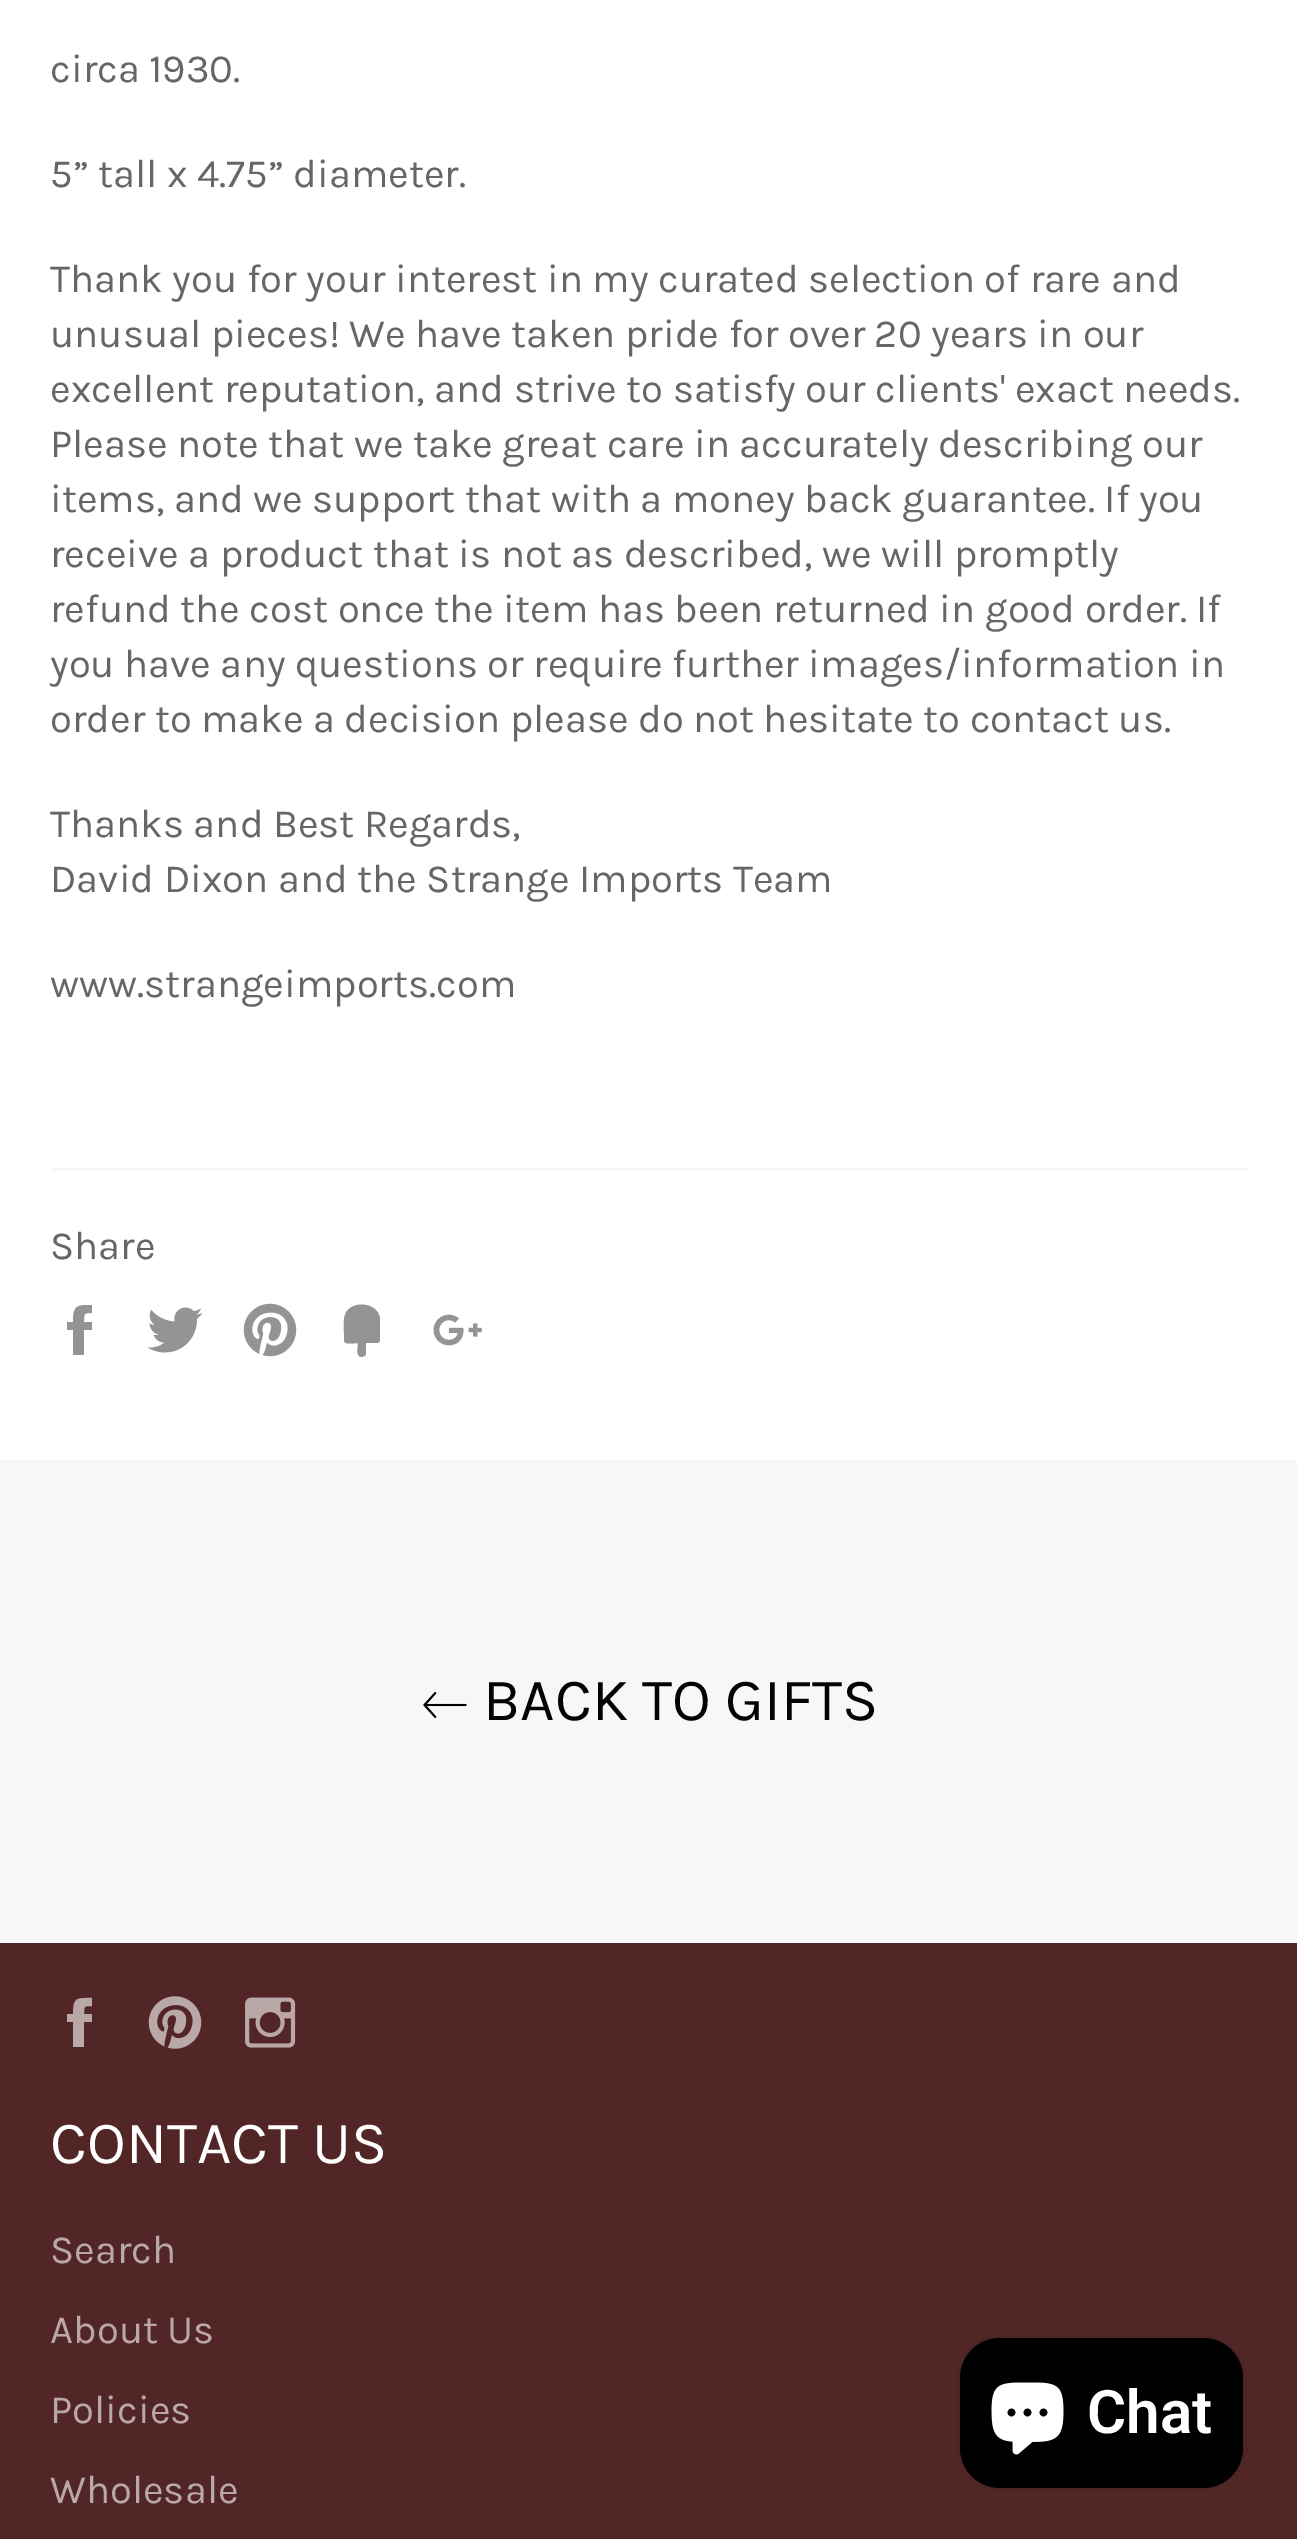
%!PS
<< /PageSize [1297 2539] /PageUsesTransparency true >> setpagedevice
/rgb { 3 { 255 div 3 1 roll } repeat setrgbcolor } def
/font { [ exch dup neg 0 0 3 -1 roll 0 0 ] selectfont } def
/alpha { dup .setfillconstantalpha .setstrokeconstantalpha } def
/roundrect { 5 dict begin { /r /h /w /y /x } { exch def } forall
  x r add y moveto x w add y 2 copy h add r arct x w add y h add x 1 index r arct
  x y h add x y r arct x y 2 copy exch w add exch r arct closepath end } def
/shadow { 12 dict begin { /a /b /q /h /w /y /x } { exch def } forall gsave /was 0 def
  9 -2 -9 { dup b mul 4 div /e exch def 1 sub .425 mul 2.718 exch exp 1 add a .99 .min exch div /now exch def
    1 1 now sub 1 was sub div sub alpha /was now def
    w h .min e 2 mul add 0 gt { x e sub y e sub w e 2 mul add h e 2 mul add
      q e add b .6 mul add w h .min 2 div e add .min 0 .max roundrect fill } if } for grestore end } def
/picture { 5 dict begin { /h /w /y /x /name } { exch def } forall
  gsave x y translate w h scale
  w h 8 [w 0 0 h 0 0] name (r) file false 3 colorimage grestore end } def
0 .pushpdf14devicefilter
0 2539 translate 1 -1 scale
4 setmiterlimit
82 38 38 rgb
0 0 1297 2539 rectfill
255 255 255 rgb
0 0 1297 1460 rectfill
247 247 247 rgb
50 1168 1198 3 rectfill
148 148 148 rgb
84 1322 moveto 84 1313 84 1313 92 1313 curveto 92 1305 lineto 77 1305 73 1305 73 1322 curveto 67 1322 lineto 67 1330 lineto 73 1330 lineto 73 1355 lineto 84 1355 lineto 84 1330 lineto 92 1330 lineto 92 1322 lineto closepath fill
(img/1.rgb) 147 1307 56 46 picture
(img/2.rgb) 243 1303 54 54 picture
380 1320 moveto 380 1302 350 1299 345 1315 curveto 343 1320 344 1328 344 1333 curveto 344 1341 lineto 345 1345 355 1343 358 1343 curveto 358 1347 355 1357 362 1357 curveto 364 1356 366 1356 366 1354 curveto 366 1343 lineto 375 1343 lineto 380 1343 380 1342 380 1337 curveto closepath fill
(img/3.rgb) 433 1314 49 32 picture
247 247 247 rgb
0 1460 1297 483 rectfill
(img/4.rgb) 423 1692 44 26 picture
186 168 168 rgb
84 2014 moveto 84 2006 84 2006 92 2006 curveto 92 1998 lineto 77 1998 73 1997 73 2014 curveto 67 2014 lineto 67 2022 lineto 73 2022 lineto 73 2047 lineto 84 2047 lineto 84 2022 lineto 92 2022 lineto 92 2014 lineto closepath fill
(img/5.rgb) 148 1996 54 53 picture
(img/6.rgb) 245 1997 51 51 picture
0 0 0 rgb
960 2338 283 150 40 6 0.15 shadow
960 2338 283 150 40 roundrect fill
(img/7.rgb) 991 2382 73 73 picture
/Karla-Regular 40 font
102 102 102 rgb
[
  [(circa 1930.) 50 82]
  [(5” tall x 4.75” diameter.) 50 187]
  [(Thank you for your interest in my curated selection of rare and) 50 292]
  [(unusual pieces! We have taken pride for over 20 years in our) 50 347]
  [(excellent reputation, and strive to satisfy our clients' exact needs.) 50 402]
  [(Please note that we take great care in accurately describing our) 50 457]
  [(items, and we support that with a money back guarantee. If you) 50 512]
  [(receive a product that is not as described, we will promptly) 50 567]
  [(refund the cost once the item has been returned in good order. If) 50 622]
  [(you have any questions or require further images/information in) 50 677]
  [(order to make a decision please do not hesitate to contact us.) 50 732]
  [(Thanks and Best Regards,) 50 837]
  [(David Dixon and the Strange Imports Team) 50 892]
  [(www.strangeimports.com) 50 997]
  [(Share) 50 1259]
] { aload pop moveto show } forall
/Karla-Regular 60 font
3 3 3 rgb
483 1720 moveto (BACK TO GIFTS) show
255 255 255 rgb
50 2163 moveto (CONTACT US) show
/Karla-Regular 40 font
186 168 168 rgb
[
  [(Search) 50 2263]
  [(About Us) 50 2343]
  [(Policies) 50 2423]
  [(Wholesale) 50 2503]
] { aload pop moveto show } forall
/Roboto-SemiBold 60 font
255 255 255 rgb
1087 2433 moveto (Chat) show
.poppdf14devicefilter showpage
